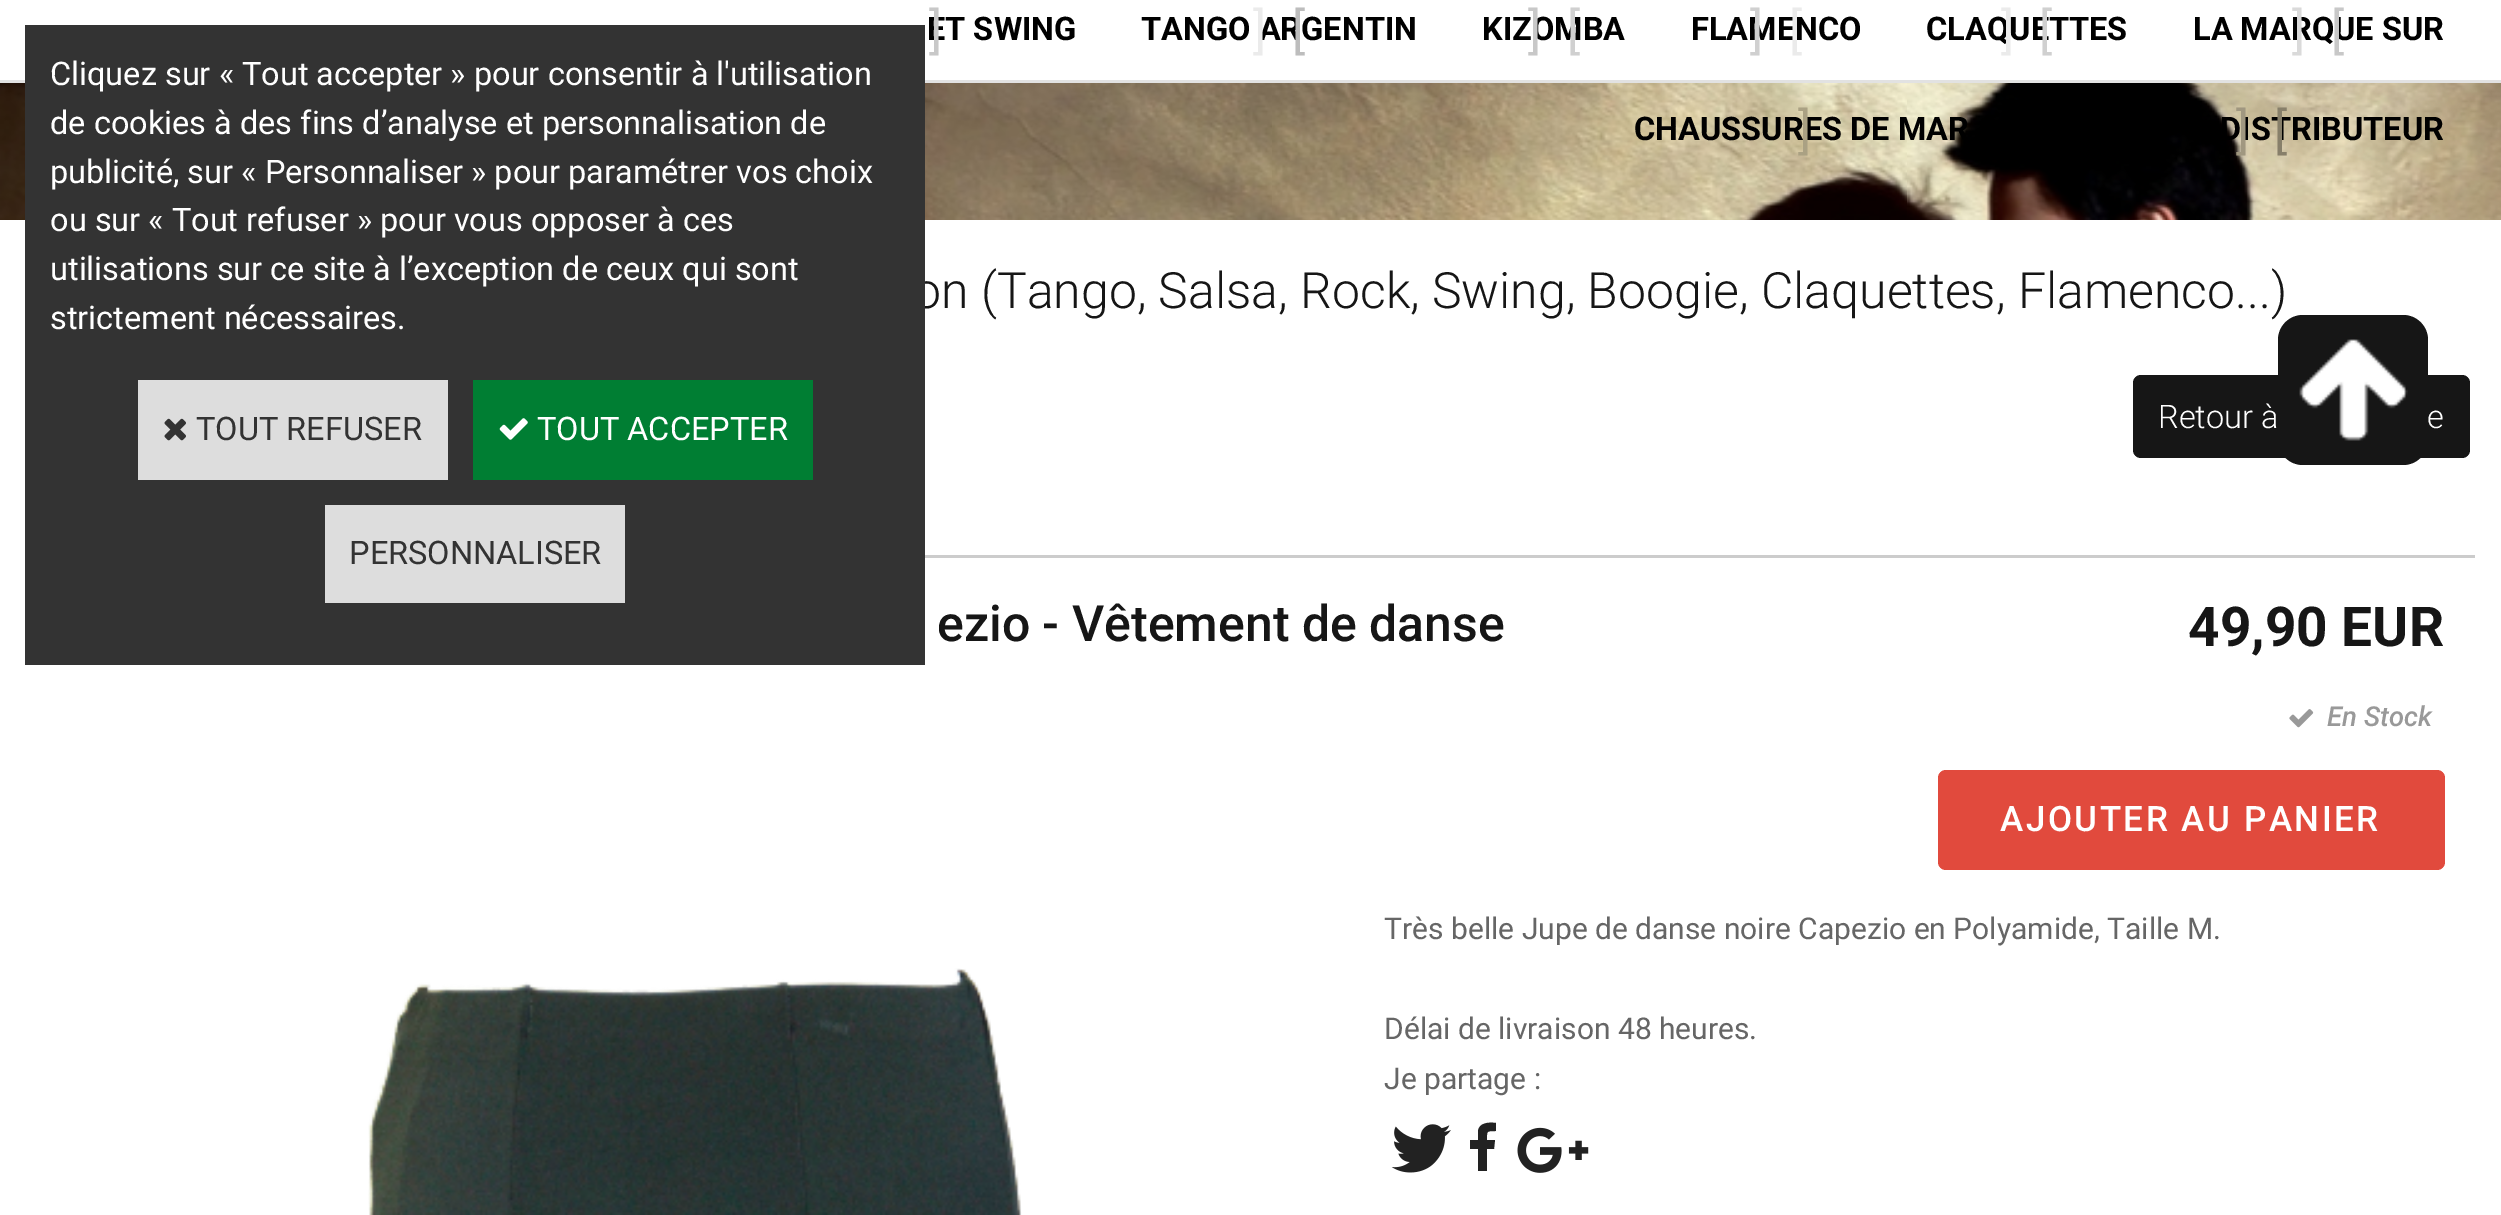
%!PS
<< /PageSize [2501 1215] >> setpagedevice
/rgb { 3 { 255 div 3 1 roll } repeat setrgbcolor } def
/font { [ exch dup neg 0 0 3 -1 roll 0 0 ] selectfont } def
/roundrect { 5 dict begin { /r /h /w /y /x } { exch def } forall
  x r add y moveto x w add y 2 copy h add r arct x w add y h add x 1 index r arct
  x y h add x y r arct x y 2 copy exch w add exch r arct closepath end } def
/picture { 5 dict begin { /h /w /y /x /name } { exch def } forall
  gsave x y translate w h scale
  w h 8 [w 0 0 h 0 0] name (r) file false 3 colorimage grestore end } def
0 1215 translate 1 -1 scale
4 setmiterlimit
255 255 255 rgb
0 0 2501 1215 rectfill
(img/1.rgb) 0 83 2501 137 picture
226 226 226 rgb
0 80 2501 3 rectfill
22 22 22 rgb
2133 375 337 83 8 roundrect fill
204 204 204 rgb
925 555 1550 3 rectfill
(img/4.rgb) 2289 709 25 19 picture
225 74 61 rgb
1938 770 507 100 8 roundrect fill
(img/5.rgb) 368 968 654 247 picture
(img/6.rgb) 1391 1124 60 49 picture
34 34 34 rgb
1496 1123 moveto 1496 1131 lineto 1486 1131 1487 1131 1487 1140 curveto 1495 1140 lineto 1494 1149 lineto 1487 1149 lineto 1487 1171 lineto 1478 1171 lineto 1478 1149 lineto 1470 1149 lineto 1470 1140 lineto 1478 1140 lineto 1478 1131 lineto 1479 1123 1488 1122 1496 1123 curveto closepath fill
(img/7.rgb) 1517 1127 72 46 picture
22 22 22 rgb
2278 315 150 150 25 roundrect fill
(img/8.rgb) 2299 339 109 102 picture
/Roboto-Bold 32.5 font
0 0 0 rgb
927 40 moveto (ET SWING) show
/Roboto-Regular 50 font
200 200 200 rgb
929 48 moveto (]) show
/Roboto-Bold 32.5 font
0 0 0 rgb
1141 40 moveto (TANGO ARGENTIN) show
/Roboto-Regular 50 font
235 235 235 rgb
1253 48 moveto (]) show
189 189 189 rgb
1292 48 moveto ([) show
/Roboto-Bold 32.5 font
0 0 0 rgb
1482 40 moveto (KIZOMBA) show
/Roboto-Regular 50 font
200 200 200 rgb
1528 48 moveto (]) show
208 208 208 rgb
1567 48 moveto ([) show
/Roboto-Bold 32.5 font
0 0 0 rgb
1691 40 moveto (FLAMENCO) show
/Roboto-Regular 50 font
208 208 208 rgb
1750 48 moveto (]) show
235 235 235 rgb
1789 48 moveto ([) show
/Roboto-Bold 32.5 font
0 0 0 rgb
1926 40 moveto (CLAQUETTES) show
/Roboto-Regular 50 font
235 235 235 rgb
2001 48 moveto (]) show
208 208 208 rgb
2039 48 moveto ([) show
/Roboto-Bold 32.5 font
0 0 0 rgb
2193 40 moveto (LA MARQUE SUR) show
/Roboto-Regular 50 font
218 218 218 rgb
2292 48 moveto (]) show
200 200 200 rgb
2331 48 moveto ([) show
/Roboto-Bold 32.5 font
0 0 0 rgb
1634 140 moveto (CHAUSSURES DE MAR) show
/Roboto-Regular 50 font
170 161 131 rgb
1798 148 moveto (]) show
/Roboto-Bold 32.5 font
0 0 0 rgb
2220 140 moveto (DISTRIBUTEUR) show
/Roboto-Regular 50 font
160 151 128 rgb
2236 148 moveto (]) show
135 127 106 rgb
2274 148 moveto ([) show
/Roboto-Light 50 font
22 22 22 rgb
913 308 moveto (on \(Tango, Salsa, Rock, Swing, Boogie, Claquettes, Flamenco...\)) show
51 51 51 rgb
25 25 900 640 rectfill
221 221 221 rgb
325 505 300 98 rectfill
/Roboto-Regular 32.5 font
51 51 51 rgb
349 564 moveto (PERSONNALISER) show
0 126 51 rgb
473 380 340 100 rectfill
255 255 255 rgb
537 440 moveto (TOUT ACCEPTER) show
(img/3.rgb) 499 418 29 22 picture
221 221 221 rgb
138 380 310 100 rectfill
51 51 51 rgb
196 440 moveto (TOUT REFUSER) show
(img/2.rgb) 164 418 22 23 picture
255 255 255 rgb
[
  [(strictement nécessaires.) 50 329]
  [(utilisations sur ce site à l’exception de ceux qui sont) 50 280]
  [(ou sur « Tout refuser » pour vous opposer à ces) 50 231]
  [(publicité, sur « Personnaliser » pour paramétrer vos choix) 50 183]
  [(de cookies à des fins d’analyse et personnalisation de) 50 134]
  [(Cliquez sur « Tout accepter » pour consentir à l'utilisation) 50 85]
] { aload pop moveto show } forall
/Roboto-Light 32.5 font
2158 428 moveto (Retour à) show
2427 428 moveto (e) show
/Roboto-Medium 50 font
22 22 22 rgb
937 641 moveto (ezio - Vêtement de danse) show
/Roboto-Bold 55 font
2188 646 moveto (49,90 EUR) show
/Roboto-MediumItalic 27.5 font
153 153 153 rgb
2327 726 moveto (En Stock) show
/Roboto-Medium 35 font
255 255 255 rgb
2000 831 moveto 2.5 0 (AJOUTER AU PANIER) ashow
/Roboto-Regular 30 font
102 102 102 rgb
[
  [(Très belle Jupe de danse noire Capezio en Polyamide, Taille M.) 1384 939]
  [(Délai de livraison 48 heures.) 1384 1039]
  [(Je partage :) 1384 1089]
] { aload pop moveto show } forall
showpage
